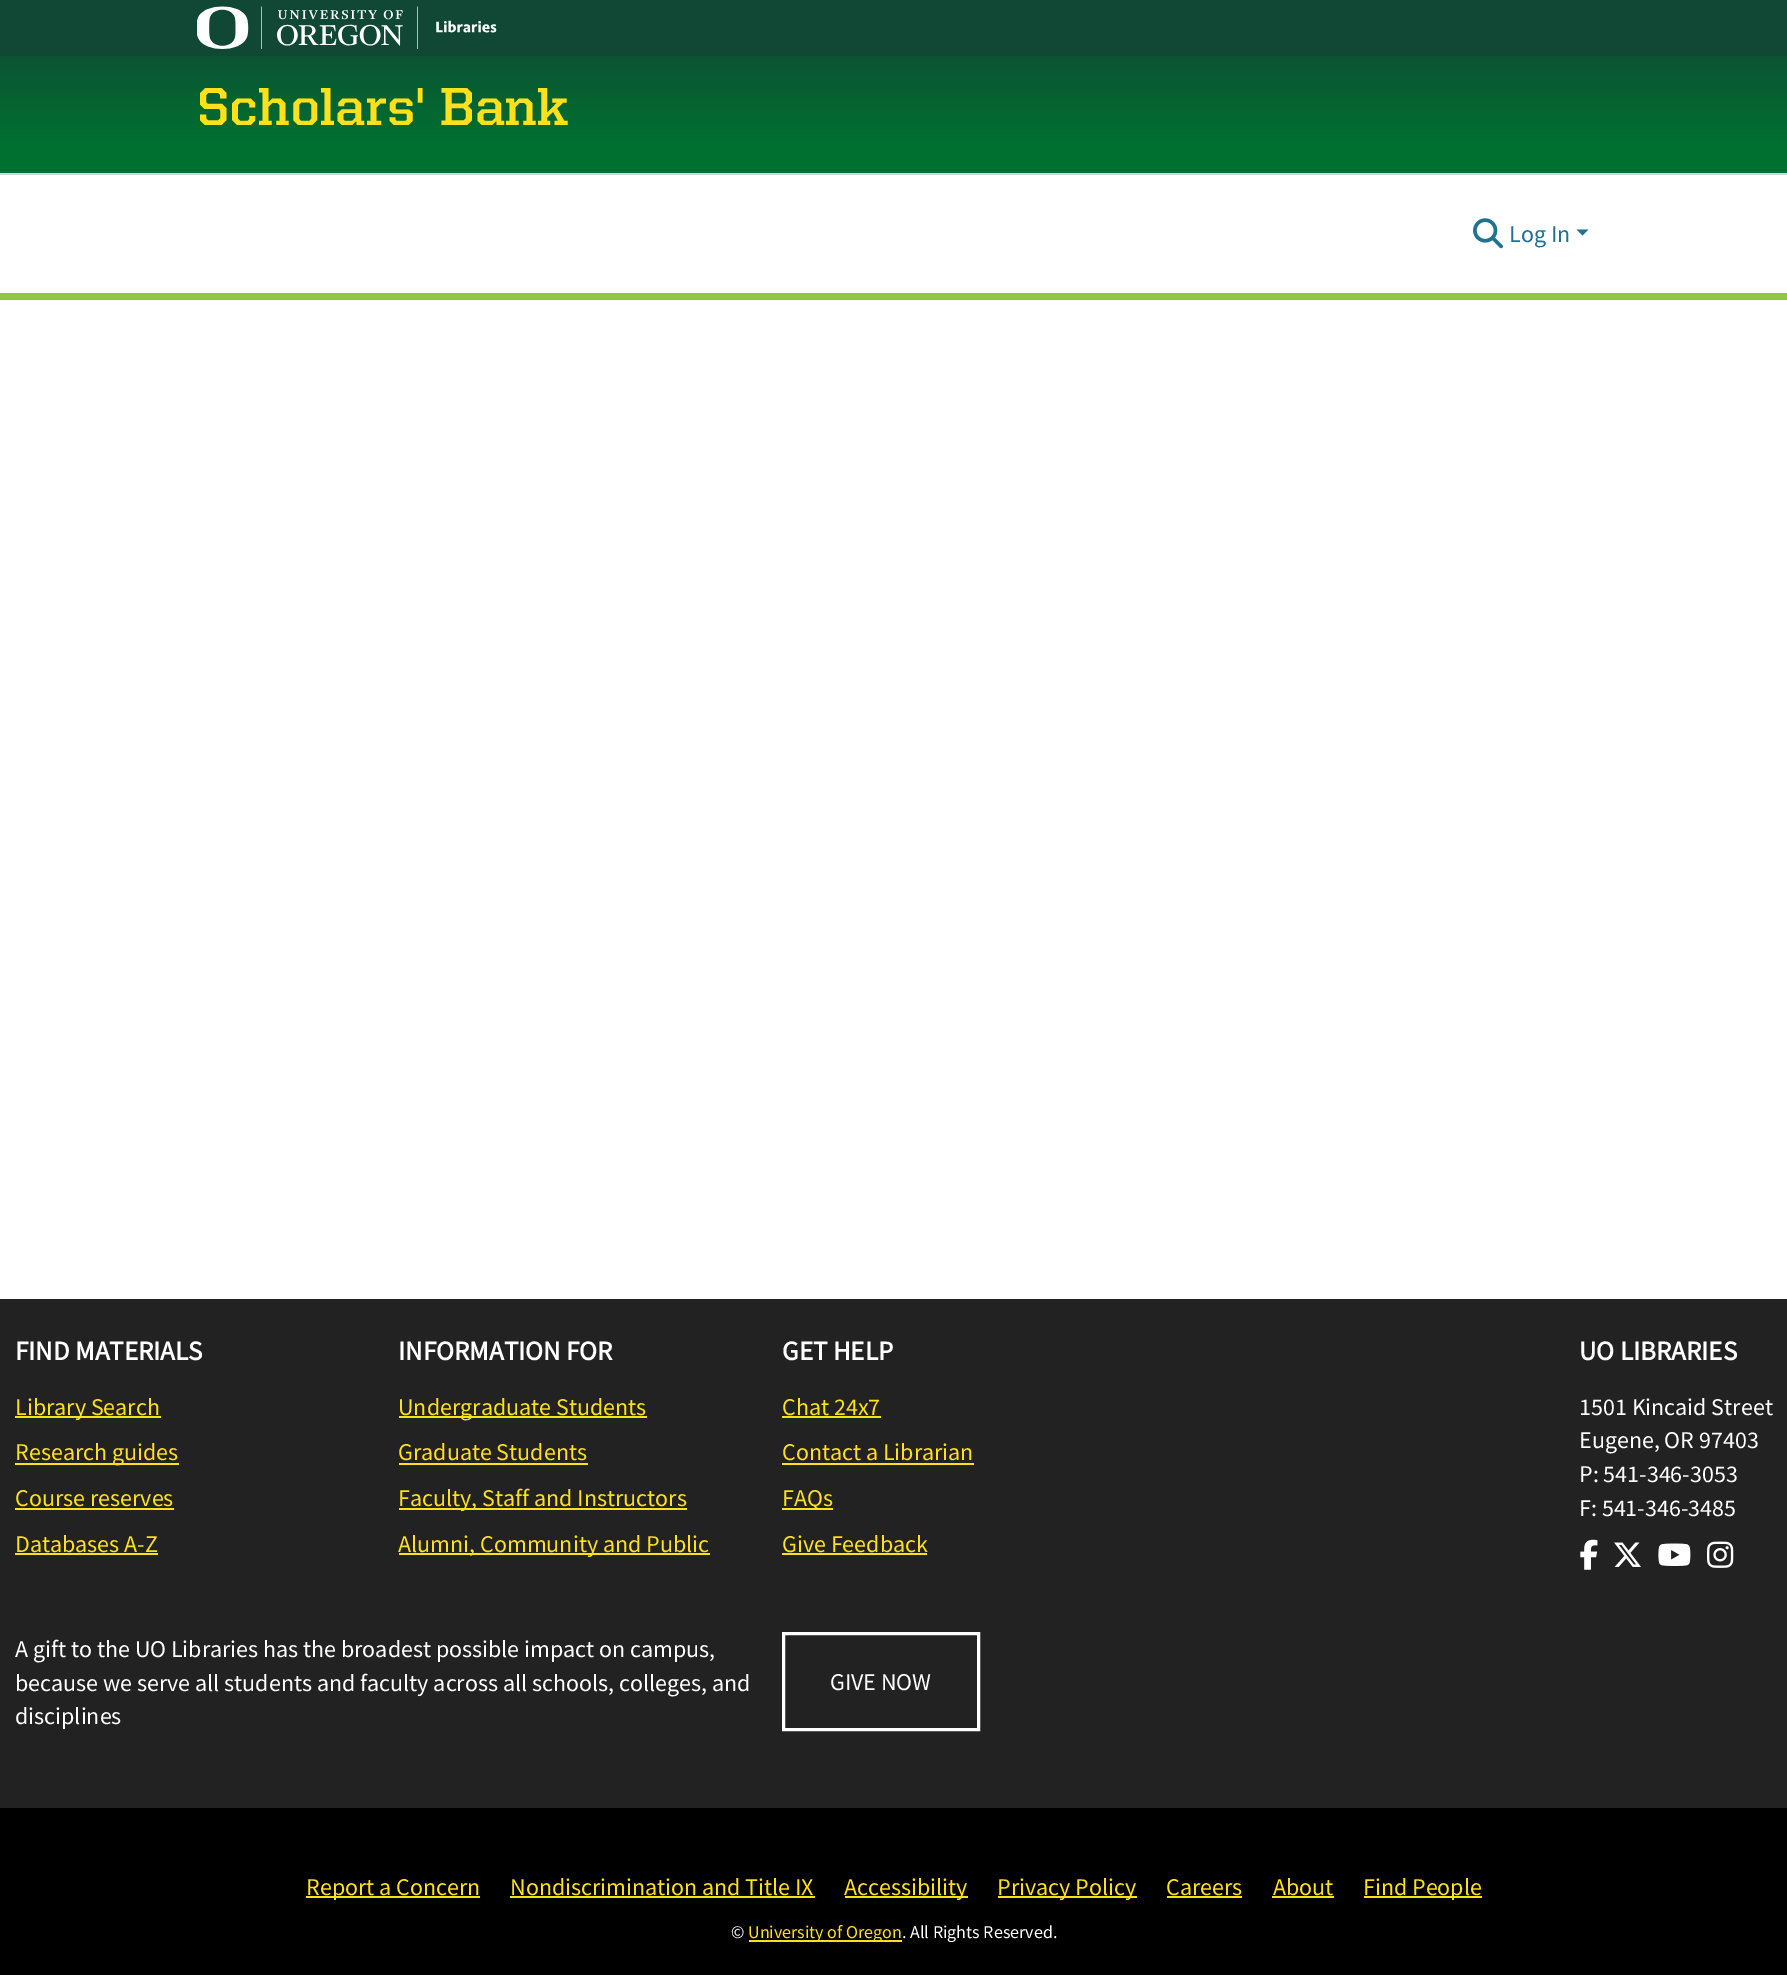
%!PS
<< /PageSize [1787 1975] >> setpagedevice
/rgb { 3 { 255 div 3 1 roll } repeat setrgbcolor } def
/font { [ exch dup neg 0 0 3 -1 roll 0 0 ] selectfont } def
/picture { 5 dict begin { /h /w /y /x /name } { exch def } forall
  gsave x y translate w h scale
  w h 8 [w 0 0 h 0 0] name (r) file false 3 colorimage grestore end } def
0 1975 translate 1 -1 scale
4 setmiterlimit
255 255 255 rgb
0 0 1787 1975 rectfill
146 198 66 rgb
0 293 1787 7 rectfill
16 71 53 rgb
0 0 1787 56 rectfill
(img/1.rgb) 197 6 300 43 picture
gsave 0 56 moveto 1787 56 lineto 1787 173 lineto 0 173 lineto closepath clip newpath
<< /ShadingType 2 /ColorSpace /DeviceRGB /Coords [894 173 894 15] /Extend [true true] /Function << /FunctionType 3 /Domain [0 1] /Functions [<< /FunctionType 2 /Domain [0 1] /C0 [0 0.439 0.188] /C1 [0 0.439 0.188] /N 1 >> << /FunctionType 2 /Domain [0 1] /C0 [0 0.439 0.188] /C1 [0.063 0.278 0.208] /N 1 >>] /Bounds [0.19] /Encode [0 1 0 1] >> >> shfill grestore
206 212 218 rgb
0 173 1787 2 rectfill
(img/2.rgb) 1473 218 30 31 picture
31 114 147 rgb
1576.5 229.5 moveto 1588.5 229.5 lineto 1582.5 235.5 lineto closepath fill
[
  [0 1299 1787 509 34 34 34]
  [15 1416 146 2 254 225 26]
  [15 1463 164 2 254 225 26]
  [15 1508 159 2 254 225 26]
  [15 1553 143 2 254 225 26]
  [399 1416 248 2 254 225 26]
  [399 1463 189 2 254 225 26]
  [399 1508 288 2 254 225 26]
  [399 1553 311 2 254 225 26]
  [782 1416 99 2 254 225 26]
  [782 1463 192 2 254 225 26]
  [782 1508 51 2 254 225 26]
  [782 1553 145 2 254 225 26]
] { aload pop rgb rectfill } forall
255 255 255 rgb
3 setlinewidth
783.5 1633.5 195 96 rectstroke
(img/3.rgb) 1580 1539 18 31 picture
(img/4.rgb) 1614 1542 27 25 picture
(img/5.rgb) 1658 1543 33 23 picture
(img/6.rgb) 1707 1541 27 27 picture
[
  [0 1808 1787 167 0 0 0]
  [306 1896 174 2 254 225 26]
  [510 1896 305 2 254 225 26]
  [845 1896 123 2 254 225 26]
  [998 1896 139 2 254 225 26]
  [1167 1896 75 2 254 225 26]
  [1272 1896 62 2 254 225 26]
  [1364 1896 118 2 254 225 26]
  [749 1940 153 2 254 225 26]
] { aload pop rgb rectfill } forall
/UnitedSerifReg-Bold 53.5 font
197 125 moveto (Scholars' Bank) show
/SourceSansPro-Regular 24 font
31 114 147 rgb
1509 242 moveto (Log In) show
/SourceSansPro-Bold 27 font
255 255 255 rgb
15 1360 moveto (FIND MATERIALS) show
/SourceSansPro-Regular 24 font
254 225 26 rgb
[
  [(Library Search) 15 1415]
  [(Research guides) 15 1460]
  [(Course reserves) 15 1506]
  [(Databases A-Z) 15 1552]
] { aload pop moveto show } forall
/SourceSansPro-Bold 27 font
255 255 255 rgb
398 1360 moveto (INFORMATION FOR) show
/SourceSansPro-Regular 24 font
254 225 26 rgb
[
  [(Undergraduate Students) 398 1415]
  [(Graduate Students) 398 1460]
  [(Faculty, Staff and Instructors) 398 1506]
  [(Alumni, Community and Public) 398 1552]
] { aload pop moveto show } forall
/SourceSansPro-Bold 27 font
255 255 255 rgb
782 1360 moveto (GET HELP) show
/SourceSansPro-Regular 24 font
254 225 26 rgb
[
  [(Chat 24x7) 782 1415]
  [(Contact a Librarian) 782 1460]
  [(FAQs) 782 1506]
  [(Give Feedback) 782 1552]
] { aload pop moveto show } forall
255 255 255 rgb
[
  [(A gift to the UO Libraries has the broadest possible impact on campus,) 15 1657]
  [(because we serve all students and faculty across all schools, colleges, and) 15 1691]
  [(disciplines) 15 1724]
  [(GIVE NOW) 830 1690]
] { aload pop moveto show } forall
/SourceSansPro-Bold 27 font
1579 1360 moveto (UO LIBRARIES) show
/SourceSansPro-Regular 24 font
[
  [(1501 Kincaid Street) 1579 1415]
  [(Eugene, OR 97403) 1579 1448]
  [(P: 541-346-3053) 1579 1482]
  [(F: 541-346-3485) 1579 1516]
] { aload pop moveto show } forall
254 225 26 rgb
[
  [(Report a Concern) 306 1895]
  [(Nondiscrimination and Title IX) 510 1895]
  [(Accessibility) 844 1895]
  [(Privacy Policy) 997 1895]
  [(Careers) 1166 1895]
  [(About) 1273 1895]
  [(Find People) 1363 1895]
] { aload pop moveto show } forall
/SourceSansPro-Regular 18 font
255 255 255 rgb
731 1938 moveto (©) show
254 225 26 rgb
748 1938 moveto (University of Oregon) show
255 255 255 rgb
902 1938 moveto (. All Rights Reserved.) show
showpage
